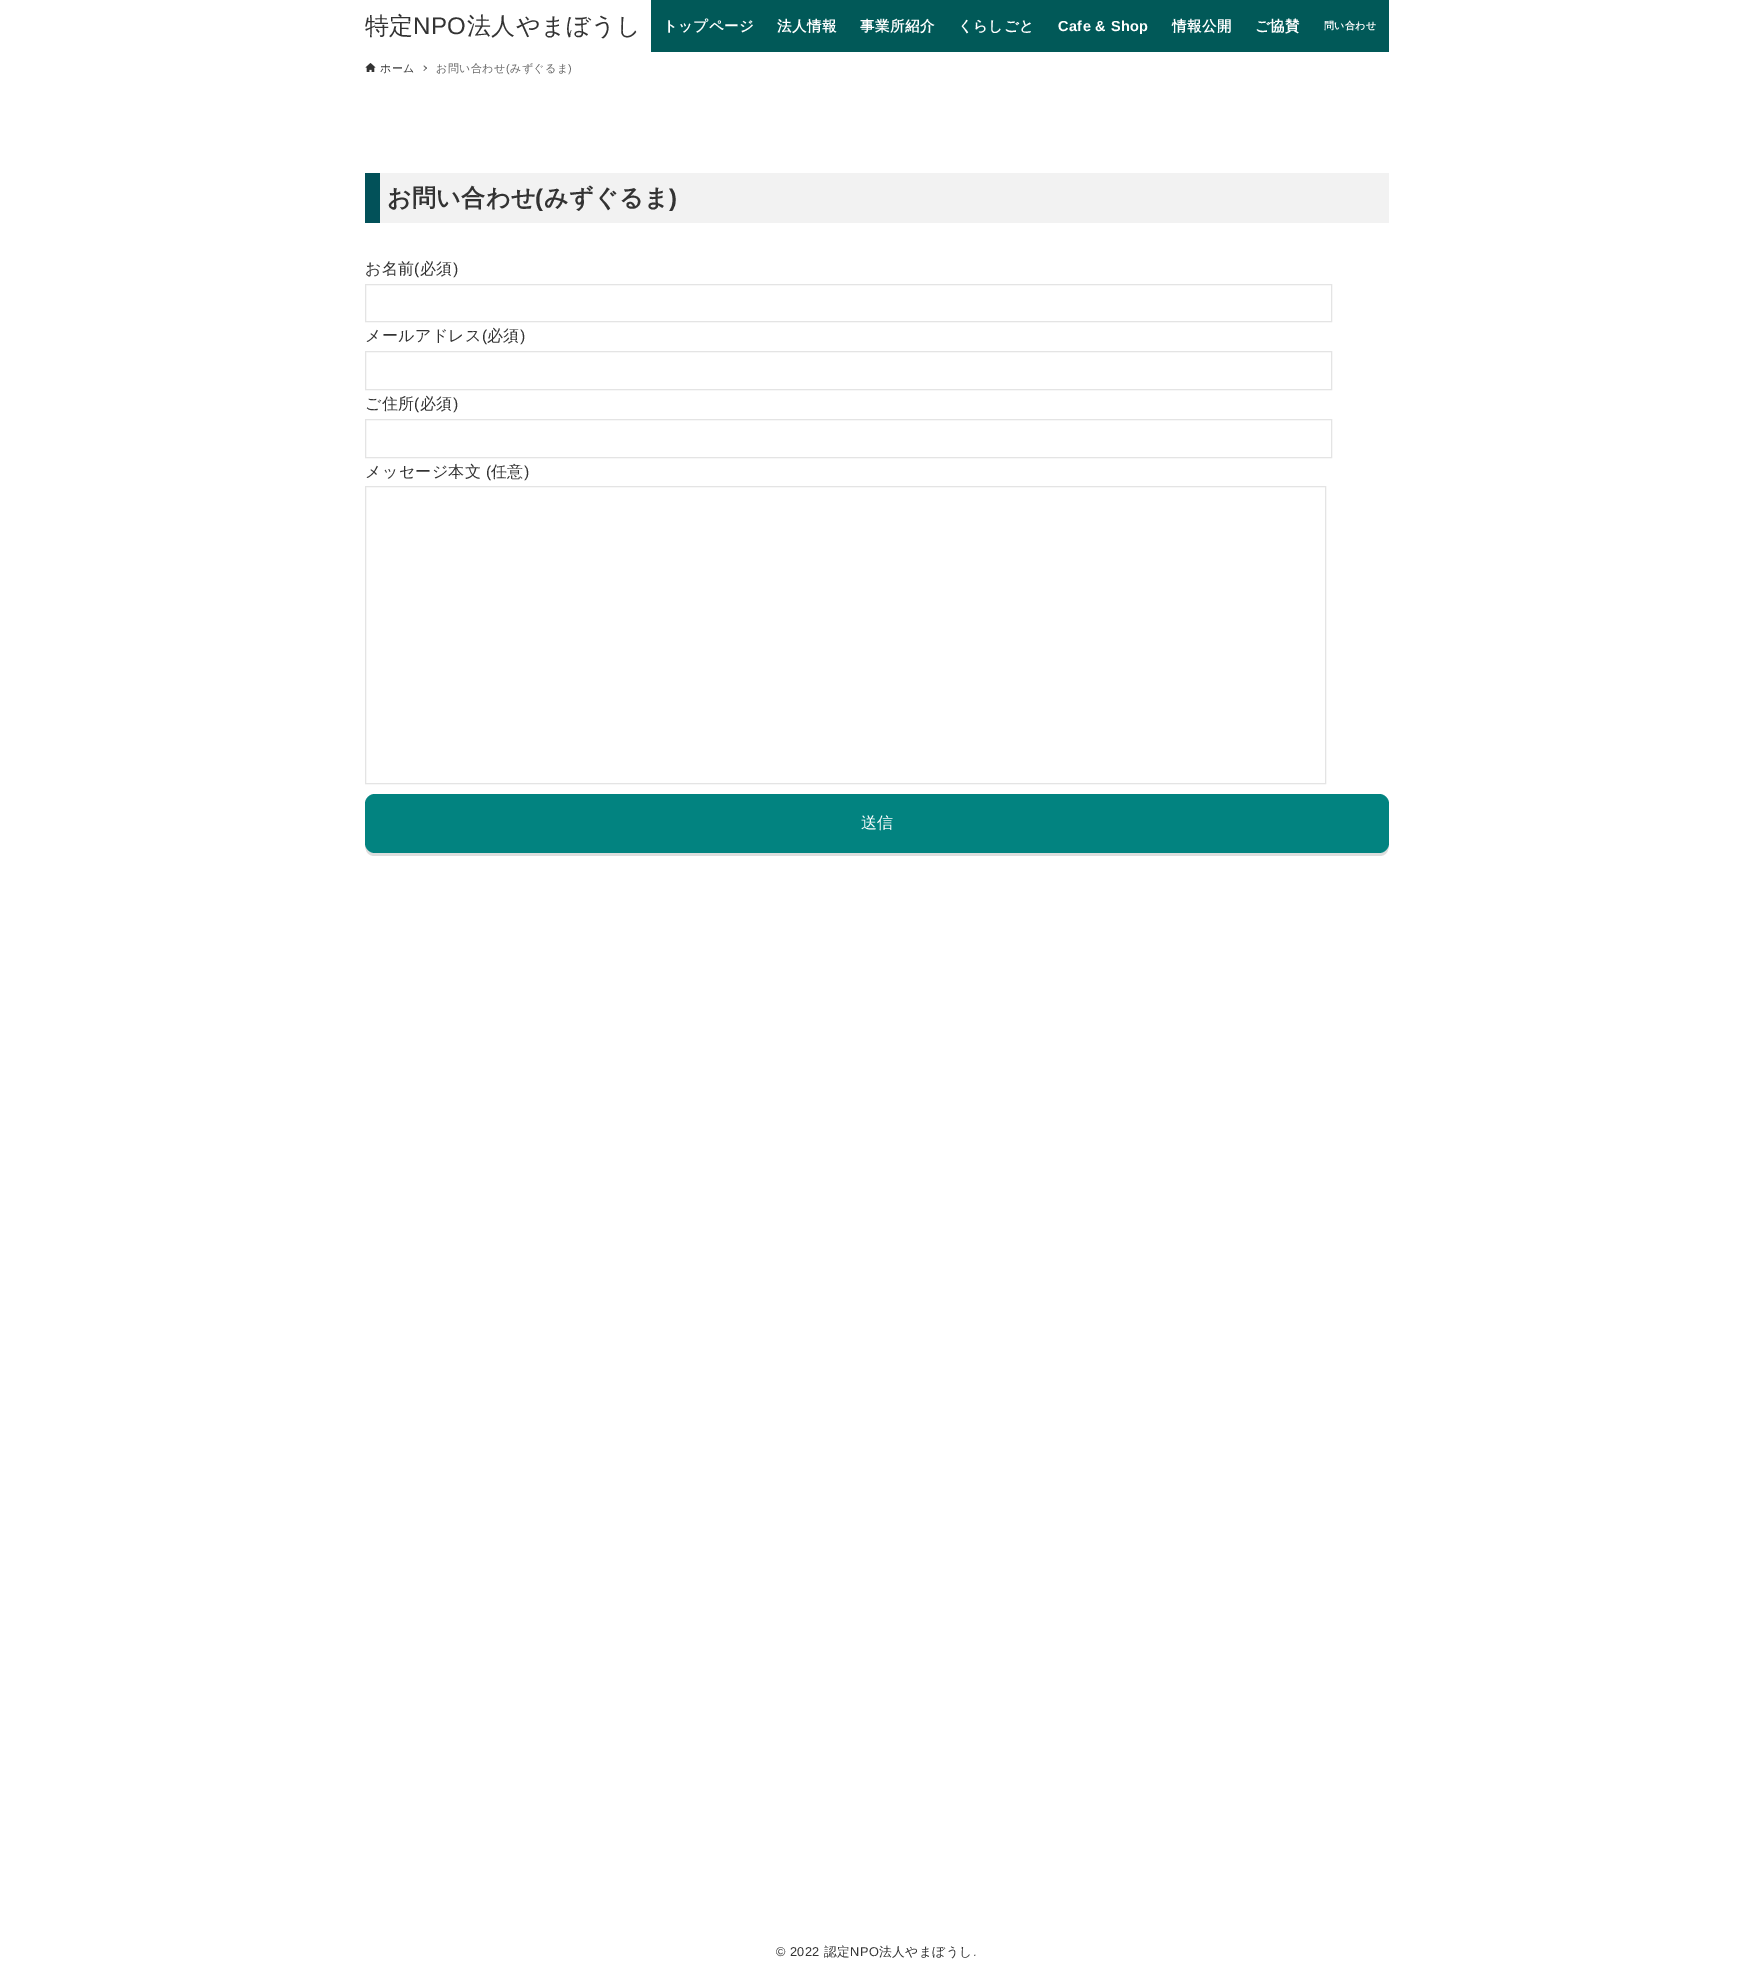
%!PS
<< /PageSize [1753 1977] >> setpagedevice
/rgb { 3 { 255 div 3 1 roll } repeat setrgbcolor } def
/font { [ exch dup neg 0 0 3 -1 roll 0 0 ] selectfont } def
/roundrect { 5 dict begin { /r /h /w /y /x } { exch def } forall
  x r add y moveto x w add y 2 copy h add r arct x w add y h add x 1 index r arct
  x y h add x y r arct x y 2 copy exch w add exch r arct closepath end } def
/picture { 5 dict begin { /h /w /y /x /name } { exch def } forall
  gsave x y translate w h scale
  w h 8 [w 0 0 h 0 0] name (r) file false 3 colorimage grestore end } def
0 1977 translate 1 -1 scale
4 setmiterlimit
255 255 255 rgb
0 0 1753 1977 rectfill
1 89 88 rgb
651 0 738 52 rectfill
(img/1.rgb) 365 63 11 9 picture
102 102 102 rgb
424 65.5 moveto 427 68 lineto 426.5 69 lineto 423.5 66 lineto closepath fill
426.5 67.5 moveto 427 68 lineto 424 71 lineto 423.5 70.5 lineto closepath fill
242 242 242 rgb
380 173 1009 50 rectfill
2 81 89 rgb
365 173 15 50 rectfill
228 228 228 rgb
365.5 284.5 966 37 rectstroke
365.5 351.5 966 38 rectstroke
365.5 419.5 966 38 rectstroke
365.5 486.5 960 297 rectstroke
221 221 221 rgb
365 843 moveto 365 850 367 856 375 856 curveto 1379 856 lineto 1387 856 1389 850 1389 843 curveto 1389 849 1385 853 1379 853 curveto 375 853 lineto 369 853 365 849 365 843 curveto closepath fill
2 131 128 rgb
365 794 1024 59 10 roundrect fill
/WenQuanYiZenHei-Medium 24 font
51 51 51 rgb
365 34 moveto 0.4 0 (特定) ashow
/LiberationSans-Regular 24 font
413 34 moveto 0.4 0 (NPO) ashow
/WenQuanYiZenHei-Medium 24 font
467 34 moveto 0.4 0 (法人やまぼうし) ashow
/WenQuanYiZenHei-Bold 14.5 font
255 255 255 rgb
663 31 moveto 0.4 0 (トップページ) ashow
777 31 moveto 0.4 0 (法人情報) ashow
860 31 moveto 0.4 0 (事業所紹介) ashow
958 31 moveto 0.4 0 (くらしごと) ashow
/LiberationSans-Bold 14.5 font
1058 31 moveto 0.4 0 (Cafe & Shop) ashow
/WenQuanYiZenHei-Bold 14.5 font
1172 31 moveto 0.4 0 (情報公開) ashow
1255 31 moveto 0.4 0 (ご協賛) ashow
/WenQuanYiZenHei-Bold 10 font
1324 29 moveto 0.4 0 (問い合わせ) ashow
/WenQuanYiZenHei-Medium 11 font
51 51 51 rgb
380 72 moveto 0.4 0 (ホーム) ashow
102 102 102 rgb
436 72 moveto 0.4 0 (お問い合わせ) ashow
/LiberationSans-Regular 11 font
506 72 moveto 0.4 0 (\() ashow
/WenQuanYiZenHei-Medium 11 font
510 72 moveto 0.4 0 (みずぐるま) ashow
/LiberationSans-Regular 11 font
568 72 moveto 0.4 0 (\)) ashow
/WenQuanYiZenHei-Bold 24 font
51 51 51 rgb
387 206 moveto 0.4 0 (お問い合わせ) ashow
/LiberationSans-Bold 24 font
535 206 moveto 0.4 0 (\() ashow
/WenQuanYiZenHei-Bold 24 font
544 206 moveto 0.4 0 (みずぐるま) ashow
/LiberationSans-Bold 24 font
669 206 moveto 0.4 0 (\)) ashow
/WenQuanYiZenHei-Medium 16 font
365 274 moveto 0.4 0 (お名前) ashow
/LiberationSans-Regular 16 font
414 274 moveto 0.4 0 (\() ashow
/WenQuanYiZenHei-Medium 16 font
420 274 moveto 0.4 0 (必須) ashow
/LiberationSans-Regular 16 font
453 274 moveto 0.4 0 (\)) ashow
/WenQuanYiZenHei-Medium 16 font
365 341 moveto 0.4 0 (メールアドレス) ashow
/LiberationSans-Regular 16 font
482 341 moveto 0.4 0 (\() ashow
/WenQuanYiZenHei-Medium 16 font
487 341 moveto 0.4 0 (必須) ashow
/LiberationSans-Regular 16 font
520 341 moveto 0.4 0 (\)) ashow
/WenQuanYiZenHei-Medium 16 font
365 409 moveto 0.4 0 (ご住所) ashow
/LiberationSans-Regular 16 font
414 409 moveto 0.4 0 (\() ashow
/WenQuanYiZenHei-Medium 16 font
420 409 moveto 0.4 0 (必須) ashow
/LiberationSans-Regular 16 font
453 409 moveto 0.4 0 (\)) ashow
/WenQuanYiZenHei-Medium 16 font
365 477 moveto 0.4 0 (メッセージ本文) ashow
/LiberationSans-Regular 16 font
486 477 moveto 0.4 0 (\() ashow
/WenQuanYiZenHei-Medium 16 font
491 477 moveto 0.4 0 (任意) ashow
/LiberationSans-Regular 16 font
524 477 moveto 0.4 0 (\)) ashow
/WenQuanYiZenHei-Medium 16 font
255 255 255 rgb
861 828 moveto (送信) show
/LiberationSans-Regular 12.75 font
51 51 51 rgb
776 1956 moveto 0.4 0 (© 2022) ashow
/WenQuanYiZenHei-Medium 12.75 font
824 1956 moveto 0.4 0 (認定) ashow
/LiberationSans-Regular 12.75 font
850 1956 moveto 0.4 0 (NPO) ashow
/WenQuanYiZenHei-Medium 12.75 font
879 1956 moveto 0.4 0 (法人やまぼうし) ashow
/LiberationSans-Regular 12.75 font
973 1956 moveto 0.4 0 (.) ashow
showpage
